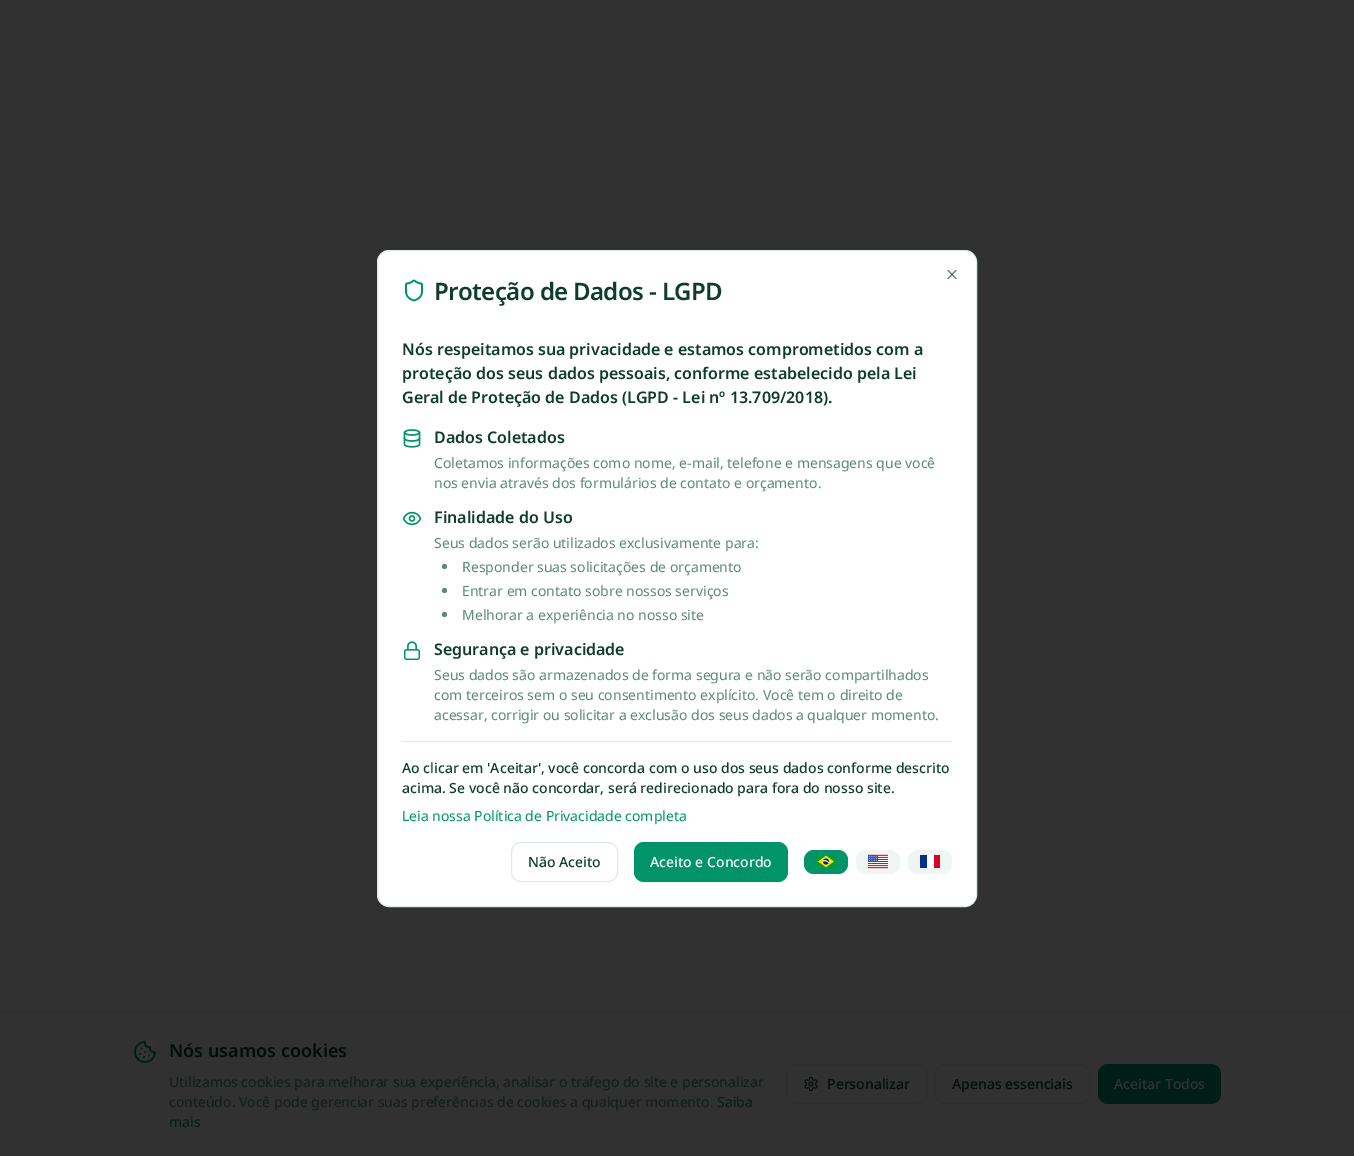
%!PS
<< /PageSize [1354 1156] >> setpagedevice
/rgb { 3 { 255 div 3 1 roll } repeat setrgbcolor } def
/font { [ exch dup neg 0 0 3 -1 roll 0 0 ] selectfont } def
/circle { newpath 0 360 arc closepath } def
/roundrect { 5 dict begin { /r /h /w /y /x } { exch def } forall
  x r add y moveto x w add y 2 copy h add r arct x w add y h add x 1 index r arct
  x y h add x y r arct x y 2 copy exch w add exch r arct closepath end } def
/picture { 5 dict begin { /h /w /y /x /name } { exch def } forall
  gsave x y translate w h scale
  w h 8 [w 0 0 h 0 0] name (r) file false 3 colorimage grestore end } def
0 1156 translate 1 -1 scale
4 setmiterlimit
49 49 49 rgb
0 0 1354 1156 rectfill
255 255 255 rgb
377.5 250.5 599 656 11.5 roundrect gsave fill grestore
224 235 231 rgb
stroke
(img/1.rgb) 947 269 10 11 picture
(img/2.rgb) 405 279 18 23 picture
(img/3.rgb) 403 429 18 19 picture
(img/4.rgb) 402 511 20 15 picture
92 138 121 rgb
444.5 566.5 2.5 circle fill
444.5 590.5 2.5 circle fill
444.5 614.5 2.5 circle fill
(img/5.rgb) 404 641 16 19 picture
224 235 231 rgb
402 741 550 1 rectfill
511.5 842.5 106 39 9.5 roundrect stroke
0 148 104 rgb
634 842 154 40 10 roundrect fill
804 850 44 24 10 roundrect fill
(img/6.rgb) 816 855 20 13 picture
239 245 243 rgb
856 850 44 24 10 roundrect fill
(img/7.rgb) 868 854 20 15 picture
908 850 44 24 10 roundrect fill
[
  [927 855 7 13 255 255 255]
  [920 855 7 13 0 49 138]
  [934 855 6 13 216 0 39]
  [0 1011 1354 1 45 47 46]
] { aload pop rgb rectfill } forall
(img/8.rgb) 134 1041 22 22 picture
786.5 1064.5 140 39 9.5 roundrect stroke
(img/9.rgb) 804 1076 14 16 picture
935.5 1064.5 154 39 9.5 roundrect stroke
0 30 21 rgb
1098 1064 123 40 10 roundrect fill
/NotoSans-SemiBold 24 font
15 61 44 rgb
434 300 moveto -0.6 0 (Proteção de Dados - LGPD) ashow
/NotoSans-SemiBold 16 font
[
  [(Nós respeitamos sua privacidade e estamos comprometidos com a) 402 355]
  [(proteção dos seus dados pessoais, conforme estabelecido pela Lei) 402 379]
  [(Geral de Proteção de Dados \(LGPD - Lei nº 13.709/2018\).) 402 403]
  [(Dados Coletados) 434 443]
] { aload pop moveto show } forall
/NotoSans-Regular 14 font
92 138 121 rgb
434 468 moveto (Coletamos informações como nome, e-mail, telefone e mensagens que você) show
434 488 moveto (nos envia através dos formulários de contato e orçamento.) show
/NotoSans-SemiBold 16 font
15 61 44 rgb
434 523 moveto (Finalidade do Uso) show
/NotoSans-Regular 14 font
92 138 121 rgb
[
  [(Seus dados serão utilizados exclusivamente para:) 434 548]
  [(Responder suas solicitações de orçamento) 462 572]
  [(Entrar em contato sobre nossos serviços) 462 596]
  [(Melhorar a experiência no nosso site) 462 620]
] { aload pop moveto show } forall
/NotoSans-SemiBold 16 font
15 61 44 rgb
434 655 moveto (Segurança e privacidade) show
/NotoSans-Regular 14 font
92 138 121 rgb
[
  [(Seus dados são armazenados de forma segura e não serão compartilhados) 434 680]
  [(com terceiros sem o seu consentimento explícito. Você tem o direito de) 434 700]
  [(acessar, corrigir ou solicitar a exclusão dos seus dados a qualquer momento.) 434 720]
] { aload pop moveto show } forall
/NotoSans-Medium 14 font
15 61 44 rgb
402 773 moveto (Ao clicar em 'Aceitar', você concorda com o uso dos seus dados conforme descrito) show
402 793 moveto (acima. Se você não concordar, será redirecionado para fora do nosso site.) show
/NotoSans-Regular 14 font
0 148 104 rgb
402 821 moveto (Leia nossa Política de Privacidade completa) show
/NotoSans-Medium 14 font
15 61 44 rgb
528 867 moveto (Não Aceito) show
255 255 255 rgb
650 867 moveto (Aceito e Concordo) show
/NotoSans-SemiBold 18 font
3 12 9 rgb
169 1057 moveto (Nós usamos cookies) show
/NotoSans-Regular 14 font
18 28 24 rgb
169 1087 moveto (Utilizamos cookies para melhorar sua experiência, analisar o tráfego do site e personalizar) show
169 1107 moveto (conteúdo. Você pode gerenciar suas preferências de cookies a qualquer momento.) show
0 30 21 rgb
717 1107 moveto (Saiba) show
169 1127 moveto (mais) show
/NotoSans-Medium 14 font
3 12 9 rgb
827 1089 moveto (Personalizar) show
952 1089 moveto (Apenas essenciais) show
51 51 51 rgb
1114 1089 moveto (Aceitar Todos) show
showpage
